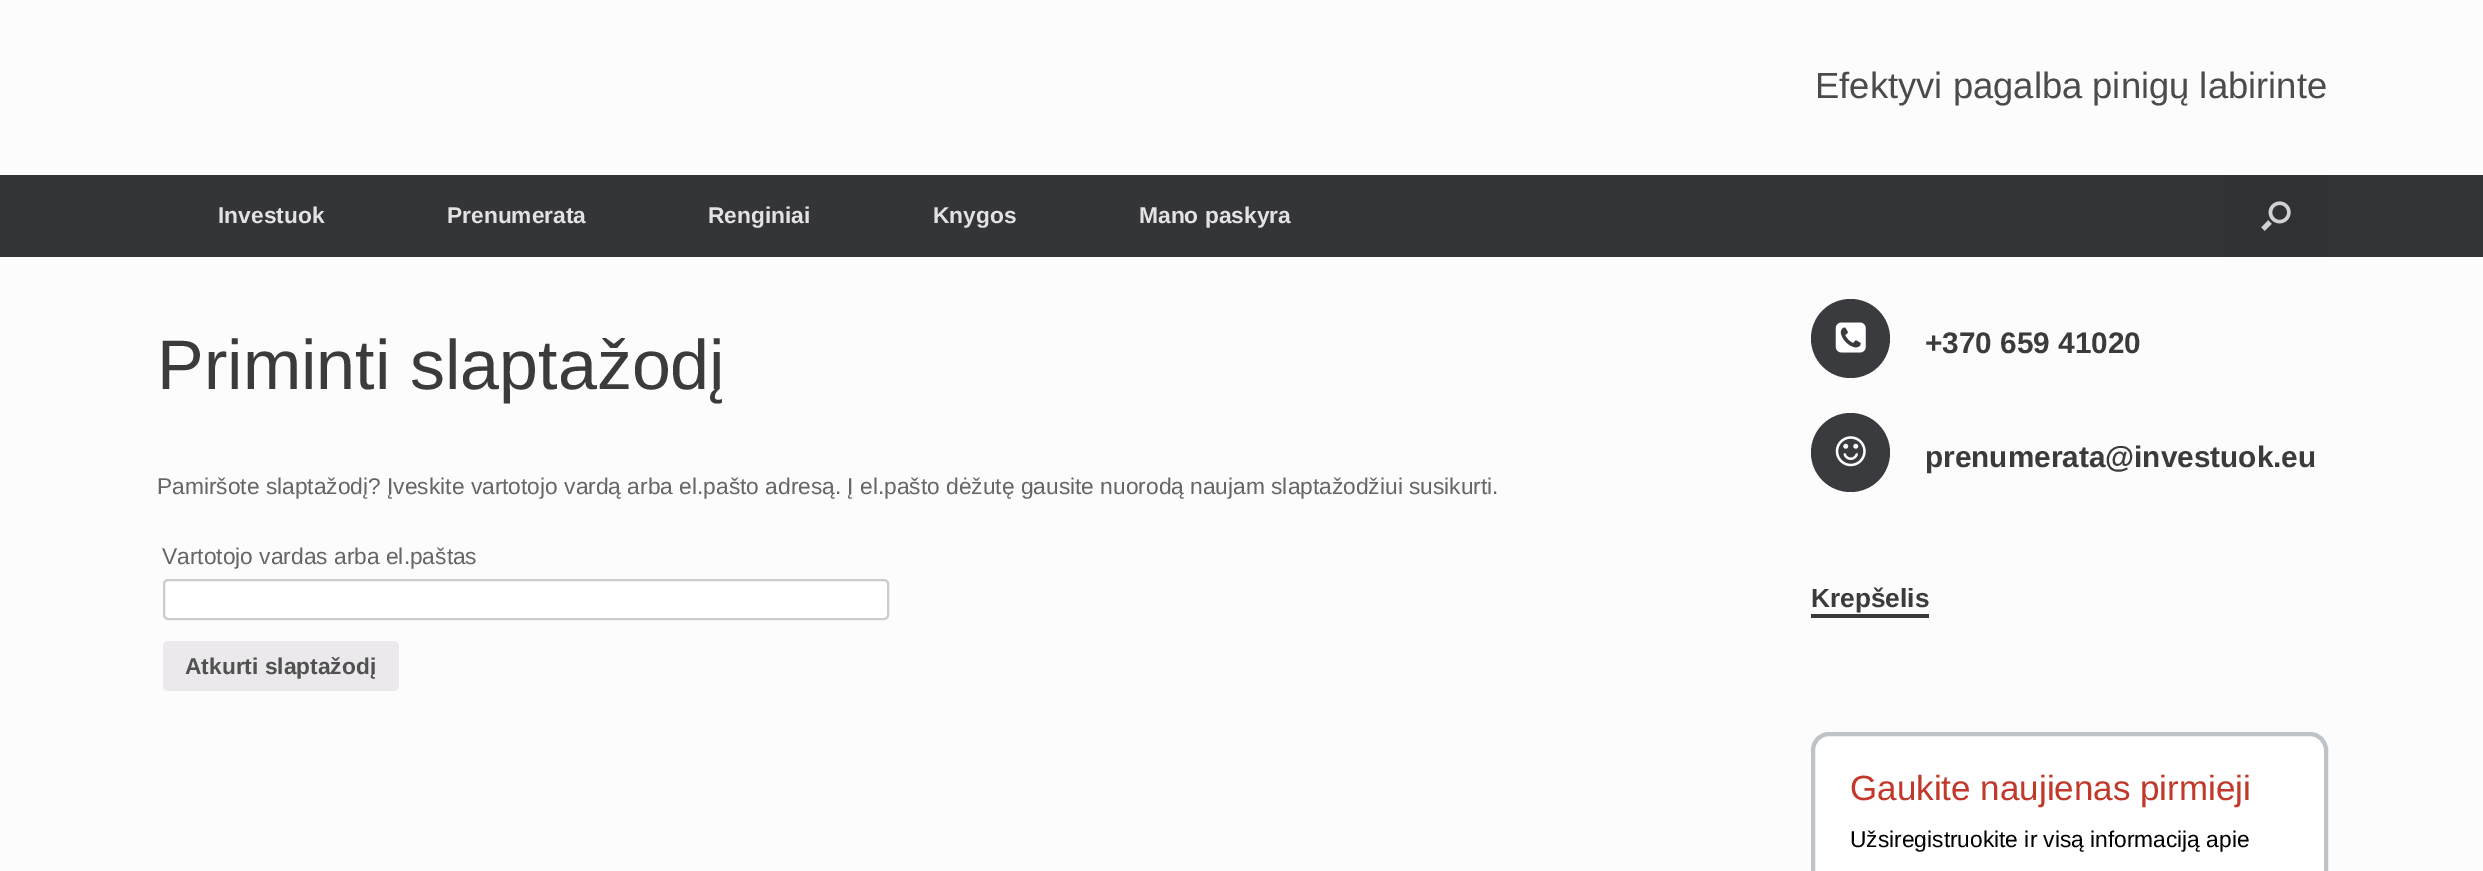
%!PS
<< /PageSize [2483 871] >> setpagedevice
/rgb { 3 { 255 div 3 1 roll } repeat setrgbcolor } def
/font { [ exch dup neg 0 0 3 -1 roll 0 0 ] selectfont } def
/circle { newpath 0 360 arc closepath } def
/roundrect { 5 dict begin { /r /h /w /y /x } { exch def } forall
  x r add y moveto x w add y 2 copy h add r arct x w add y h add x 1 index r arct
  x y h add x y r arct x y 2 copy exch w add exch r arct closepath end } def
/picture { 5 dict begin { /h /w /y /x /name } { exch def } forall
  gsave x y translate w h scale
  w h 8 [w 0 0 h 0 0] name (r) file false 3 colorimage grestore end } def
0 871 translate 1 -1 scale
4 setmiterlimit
252 252 252 rgb
0 0 2483 871 rectfill
52 53 56 rgb
0 175 2483 82 rectfill
48 49 52 rgb
2224 175 104 82 rectfill
(img/1.rgb) 2261 201 30 30 picture
255 255 255 rgb
164 580 724 39 4 roundrect gsave fill grestore
204 204 204 rgb
2 setlinewidth
stroke
235 233 235 rgb
163 641 236 50 5 roundrect fill
58 59 62 rgb
1850.5 338.5 39.5 circle fill
(img/2.rgb) 1835 322 31 31 picture
1850.5 452.5 39.5 circle fill
(img/3.rgb) 1835 436 31 31 picture
59 59 59 rgb
1811 614 118 4 rectfill
255 255 255 rgb
1813 734 513 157 16 roundrect gsave fill grestore
189 195 199 rgb
4 setlinewidth
stroke
/LiberationSans-Regular 36.4 font
75 75 75 rgb
1815 98 moveto (Efektyvi pagalba pinigų labirinte) show
/LiberationSans-Bold 22.75 font
226 226 226 rgb
[
  [(Investuok) 218 223]
  [(Prenumerata) 447 223]
  [(Renginiai) 708 223]
  [(Knygos) 933 223]
  [(Mano paskyra) 1139 223]
] { aload pop moveto show } forall
/LiberationSans-Regular 70 font
59 59 59 rgb
157 389 moveto (Priminti slaptažodį) show
/LiberationSans-Regular 22.75 font
102 102 102 rgb
157 494 moveto (Pamiršote slaptažodį? Įveskite vartotojo vardą arba el.pašto adresą. Į el.pašto dėžutę gausite nuorodą naujam slaptažodžiui susikurti.) show
162 564 moveto (Vartotojo vardas arba el.paštas) show
/LiberationSans-Bold 22.75 font
81 81 81 rgb
185 674 moveto (Atkurti slaptažodį) show
/LiberationSans-Bold 29.75 font
59 59 59 rgb
1925 353 moveto (+370 659 41020) show
1925 467 moveto (prenumerata@investuok.eu) show
/LiberationSans-Bold 26.25 font
1811 607 moveto (Krepšelis) show
/LiberationSans-Regular 35 font
192 57 43 rgb
1850 800 moveto (Gaukite naujienas pirmieji) show
/LiberationSans-Regular 22.75 font
0 0 0 rgb
1850 847 moveto (Užsiregistruokite ir visą informaciją apie) show
showpage
